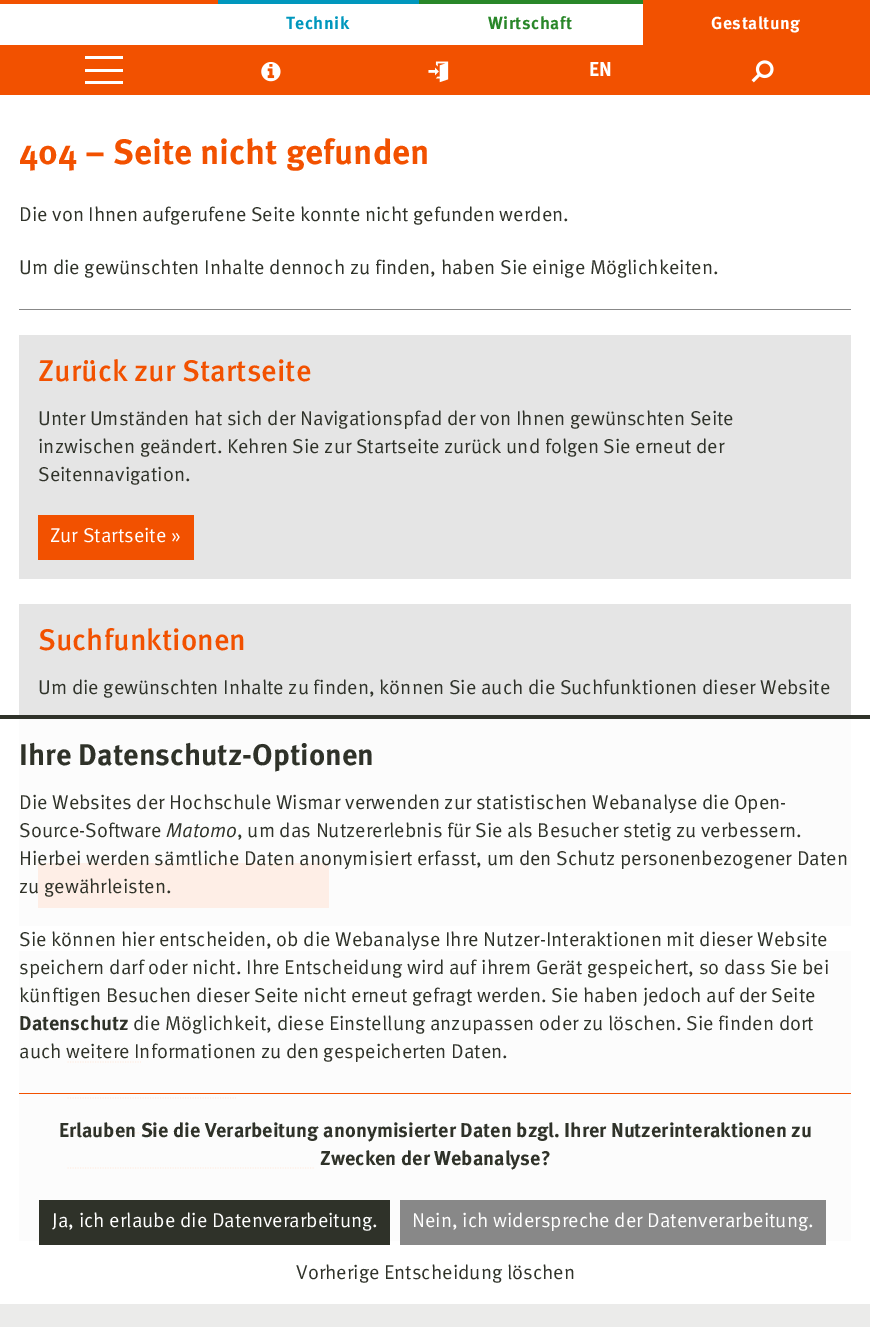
%!PS
<< /PageSize [870 1327] /PageUsesTransparency true >> setpagedevice
/rgb { 3 { 255 div 3 1 roll } repeat setrgbcolor } def
/font { [ exch dup neg 0 0 3 -1 roll 0 0 ] selectfont } def
/alpha { dup .setfillconstantalpha .setstrokeconstantalpha } def
/picture { 5 dict begin { /h /w /y /x /name } { exch def } forall
  gsave x y translate w h scale
  w h 8 [w 0 0 h 0 0] name (r) file false 3 colorimage grestore end } def
0 .pushpdf14devicefilter
0 1327 translate 1 -1 scale
4 setmiterlimit
255 255 255 rgb
0 0 870 1327 rectfill
[
  [0 0 218 4 242 81 0]
  [218 0 201 4 0 151 189]
  [419 0 224 4 41 135 41]
  [643 0 227 45 242 81 0]
  [0 45 870 50 242 81 0]
  [85 69 38 3 255 255 255]
  [85 56 38 3 255 255 255]
  [85 81 38 3 255 255 255]
] { aload pop rgb rectfill } forall
(img/1.rgb) 261 62 20 20 picture
(img/2.rgb) 428 61 21 22 picture
(img/3.rgb) 751 60 23 23 picture
[
  [19 309 832 1 136 136 136]
  [19 335 832 244 229 229 229]
  [38 515 156 45 242 81 0]
  [19 604 832 322 229 229 229]
  [38 863 291 45 242 81 0]
  [19 951 832 290 229 229 229]
] { aload pop rgb rectfill } forall
242 81 0 rgb
1.2 setlinewidth
[1.25 1.25] 0 setdash
67.5 1062 moveto 141 1062 lineto stroke
67.5 1098 moveto 236 1098 lineto stroke
67.5 1133 moveto 165 1133 lineto stroke
67.5 1168 moveto 314 1168 lineto stroke
[
  [0 1304 870 23 47 50 41]
] { aload pop rgb rectfill } forall
0.9 alpha
[
  [0 719 870 608 255 255 255]
] { aload pop rgb rectfill } forall
1 alpha
[
  [0 715 870 4 47 50 41]
  [19 1093 832 1 242 81 0]
  [39 1200 351 45 47 50 41]
  [400 1200 426 45 136 136 136]
] { aload pop rgb rectfill } forall
/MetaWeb-Bold 17.5 font
0 151 189 rgb
286 29 moveto 0.5 0 (Technik) ashow
41 135 41 rgb
488 29 moveto 0.5 0 (Wirtschaft) ashow
255 255 255 rgb
711 29 moveto 0.5 0 (Gestaltung) ashow
/MetaWeb-Bold 20 font
589 76 moveto (EN) show
/MetaWeb-Bold 35 font
242 81 0 rgb
19 164 moveto (404 – Seite nicht gefunden) show
/MetaWeb-Regular 20 font
47 50 41 rgb
19 221 moveto (Die von Ihnen aufgerufene Seite konnte nicht gefunden werden.) show
19 274 moveto (Um die gewünschten Inhalte dennoch zu finden, haben Sie einige Möglichkeiten.) show
/MetaWeb-Medium 30 font
242 81 0 rgb
38 381 moveto (Zurück zur Startseite) show
/MetaWeb-Regular 20 font
47 50 41 rgb
[
  [(Unter Umständen hat sich der Navigationspfad der von Ihnen gewünschten Seite) 38 425]
  [(inzwischen geändert. Kehren Sie zur Startseite zurück und folgen Sie erneut der) 38 453]
  [(Seitennavigation.) 38 481]
] { aload pop moveto show } forall
255 255 255 rgb
50 542 moveto (Zur Startseite ») show
/MetaWeb-Medium 30 font
242 81 0 rgb
38 650 moveto (Suchfunktionen) show
/MetaWeb-Regular 20 font
47 50 41 rgb
38 694 moveto (Um die gewünschten Inhalte zu finden, können Sie auch die Suchfunktionen dieser Website) show
/MetaWeb-Bold 30 font
19 765 moveto (Ihre Datenschutz-Optionen) show
/MetaWeb-Regular 20 font
19 809 moveto (Die Websites der Hochschule Wismar verwenden zur statistischen Webanalyse die Open-) show
19 837 moveto (Source-Software) show
/MetaWeb-Italic 20 font
166 837 moveto (Matomo) show
/MetaWeb-Regular 20 font
[
  [(, um das Nutzererlebnis für Sie als Besucher stetig zu verbessern.) 237 837]
  [(Hierbei werden sämtliche Daten anonymisiert erfasst, um den Schutz personenbezogener Daten) 19 865]
  [(zu gewährleisten.) 19 893]
  [(Sie können hier entscheiden, ob die Webanalyse Ihre Nutzer-Interaktionen mit dieser Website) 19 946]
  [(speichern darf oder nicht. Ihre Entscheidung wird auf ihrem Gerät gespeichert, so dass Sie bei) 19 974]
  [(künftigen Besuchen dieser Seite nicht erneut gefragt werden. Sie haben jedoch auf der Seite) 19 1002]
] { aload pop moveto show } forall
/MetaWeb-Bold 20 font
19 1030 moveto (Datenschutz) show
/MetaWeb-Regular 20 font
133 1030 moveto (die Möglichkeit, diese Einstellung anzupassen oder zu löschen. Sie finden dort) show
19 1058 moveto (auch weitere Informationen zu den gespeicherten Daten.) show
/MetaWeb-Bold 20 font
59 1137 moveto (Erlauben Sie die Verarbeitung anonymisierter Daten bzgl. Ihrer Nutzerinteraktionen zu) show
320 1165 moveto (Zwecken der Webanalyse?) show
/MetaWeb-Regular 20 font
255 255 255 rgb
52 1227 moveto (Ja, ich erlaube die Datenverarbeitung.) show
412 1227 moveto (Nein, ich widerspreche der Datenverarbeitung.) show
47 50 41 rgb
296 1279 moveto (Vorherige Entscheidung löschen) show
.poppdf14devicefilter showpage
